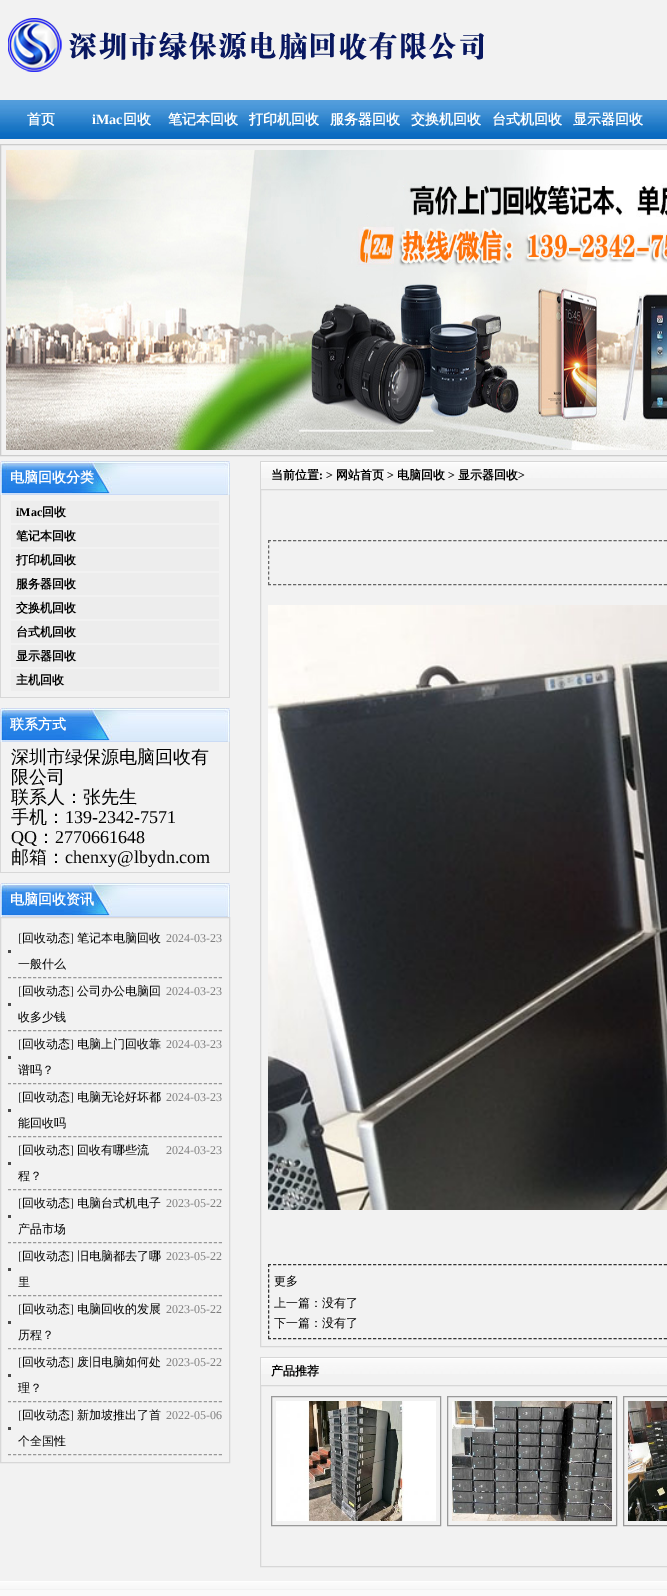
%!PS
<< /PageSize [667 1596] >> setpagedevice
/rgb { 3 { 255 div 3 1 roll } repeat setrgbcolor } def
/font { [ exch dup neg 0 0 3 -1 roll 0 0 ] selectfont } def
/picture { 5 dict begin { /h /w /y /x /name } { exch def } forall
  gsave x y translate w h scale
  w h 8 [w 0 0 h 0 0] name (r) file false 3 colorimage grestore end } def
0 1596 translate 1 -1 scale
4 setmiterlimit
242 242 242 rgb
0 0 667 1596 rectfill
(img/1.rgb) 8 18 476 54 picture
(img/2.rgb) 0 100 667 39 picture
204 204 204 rgb
0.5 144.5 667 311 rectstroke
(img/3.rgb) 6 150 661 300 picture
(img/4.rgb) 0 461 230 34 picture
[
  [229 495 1 203 215 215 215]
  [0 697 230 1 215 215 215]
  [0 495 1 203 215 215 215]
  [11 501 208 22 237 237 237]
  [11 525 208 22 237 237 237]
  [11 549 208 22 237 237 237]
  [11 573 208 22 237 237 237]
  [11 597 208 22 237 237 237]
  [11 621 208 22 237 237 237]
  [11 645 208 22 237 237 237]
  [11 669 208 22 237 237 237]
] { aload pop rgb rectfill } forall
(img/4.rgb) 0 708 230 34 picture
[
  [229 742 1 131 215 215 215]
  [0 872 230 1 215 215 215]
  [0 742 1 131 215 215 215]
] { aload pop rgb rectfill } forall
(img/4.rgb) 0 883 230 34 picture
0.5 917.5 229 545 rectstroke
74 74 74 rgb
8 950 3 3 rectfill
153 153 153 rgb
[3 2.02] 0 setdash
8 977.5 moveto 222 977.5 lineto stroke
74 74 74 rgb
8 1003 3 3 rectfill
153 153 153 rgb
8 1030.5 moveto 222 1030.5 lineto stroke
74 74 74 rgb
8 1056 3 3 rectfill
153 153 153 rgb
8 1083.5 moveto 222 1083.5 lineto stroke
74 74 74 rgb
8 1109 3 3 rectfill
153 153 153 rgb
8 1136.5 moveto 222 1136.5 lineto stroke
74 74 74 rgb
8 1162 3 3 rectfill
153 153 153 rgb
8 1189.5 moveto 222 1189.5 lineto stroke
74 74 74 rgb
8 1215 3 3 rectfill
153 153 153 rgb
8 1242.5 moveto 222 1242.5 lineto stroke
74 74 74 rgb
8 1268 3 3 rectfill
153 153 153 rgb
8 1295.5 moveto 222 1295.5 lineto stroke
74 74 74 rgb
8 1321 3 3 rectfill
153 153 153 rgb
8 1348.5 moveto 222 1348.5 lineto stroke
74 74 74 rgb
8 1374 3 3 rectfill
153 153 153 rgb
8 1401.5 moveto 222 1401.5 lineto stroke
74 74 74 rgb
8 1427 3 3 rectfill
153 153 153 rgb
8 1454.5 moveto 222 1454.5 lineto stroke
(img/5.rgb) 261 462 406 16 picture
215 215 215 rgb
260 461 407 1 rectfill
260 461 1 28 rectfill
[] 0 setdash
260.5 489.5 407 857 rectstroke
102 102 102 rgb
[3 2.01] 0 setdash
268 540.5 moveto 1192 540.5 lineto stroke
268 584.5 moveto 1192 584.5 lineto stroke
[3 2.25] 0 setdash
268.5 540 moveto 268.5 585 lineto stroke
(img/6.rgb) 268 605 399 605 picture
51 51 51 rgb
[3 2.01] 0 setdash
268 1264.5 moveto 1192 1264.5 lineto stroke
268 1338.5 moveto 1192 1338.5 lineto stroke
[3 2.14] 0 setdash
268.5 1264 moveto 268.5 1339 lineto stroke
(img/5.rgb) 261 1358 406 16 picture
215 215 215 rgb
260 1357 407 1 rectfill
260 1357 1 28 rectfill
[] 0 setdash
260.5 1385.5 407 181 rectstroke
153 153 153 rgb
271.5 1396.5 169 129 rectstroke
(img/7.rgb) 276 1401 160 120 picture
447.5 1396.5 169 129 rectstroke
(img/8.rgb) 452 1401 160 120 picture
623.5 1396.5 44 129 rectstroke
(img/9.rgb) 628 1401 39 120 picture
(img/10.rgb) 0 1581 667 8 picture
250 250 250 rgb
0 1590 667 6 rectfill
/WenQuanYiZenHei-Bold 14 font
255 255 255 rgb
27 124 moveto (首页) show
/LiberationSerif-Bold 14 font
92 124 moveto (iMac) show
/WenQuanYiZenHei-Bold 14 font
[
  [(回收) 123 124]
  [(笔记本回收) 168 124]
  [(打印机回收) 249 124]
  [(服务器回收) 330 124]
  [(交换机回收) 411 124]
  [(台式机回收) 492 124]
  [(显示器回收) 573 124]
  [(电脑回收分类) 10 482]
] { aload pop moveto show } forall
/LiberationSerif-Bold 12 font
0 0 0 rgb
16 516 moveto (iMac) show
/WenQuanYiZenHei-Bold 12 font
[
  [(回收) 42 516]
  [(笔记本回收) 16 540]
  [(打印机回收) 16 564]
  [(服务器回收) 16 588]
  [(交换机回收) 16 612]
  [(台式机回收) 16 636]
  [(显示器回收) 16 660]
  [(主机回收) 16 684]
] { aload pop moveto show } forall
/WenQuanYiZenHei-Bold 14 font
255 255 255 rgb
10 729 moveto (联系方式) show
/WenQuanYiZenHei-Medium 18 font
0 0 0 rgb
[
  [(深圳市绿保源电脑回收有) 11 763]
  [(限公司) 11 783]
  [(联系人：张先生) 11 803]
  [(手机：) 11 823]
] { aload pop moveto show } forall
/LiberationSerif-Regular 18 font
65 823 moveto (139-2342-7571) show
11 843 moveto (QQ) show
/WenQuanYiZenHei-Medium 18 font
37 843 moveto (：) show
/LiberationSerif-Regular 18 font
55 843 moveto (2770661648) show
/WenQuanYiZenHei-Medium 18 font
11 863 moveto (邮箱：) show
/LiberationSerif-Regular 18 font
65 863 moveto (chenxy@lbydn.com) show
/WenQuanYiZenHei-Bold 14 font
255 255 255 rgb
10 904 moveto (电脑回收资讯) show
/LiberationSerif-Regular 12 font
0 0 0 rgb
18 942 moveto ([) show
/WenQuanYiZenHei-Medium 12 font
22 942 moveto (回收动态) show
/LiberationSerif-Regular 12 font
70 942 moveto (]) show
/WenQuanYiZenHei-Medium 12 font
77 942 moveto (笔记本电脑回收) show
/LiberationSerif-Regular 12 font
128 128 128 rgb
166 942 moveto (2024-03-23) show
/WenQuanYiZenHei-Medium 12 font
0 0 0 rgb
18 968 moveto (一般什么) show
/LiberationSerif-Regular 12 font
18 995 moveto ([) show
/WenQuanYiZenHei-Medium 12 font
22 995 moveto (回收动态) show
/LiberationSerif-Regular 12 font
70 995 moveto (]) show
/WenQuanYiZenHei-Medium 12 font
77 995 moveto (公司办公电脑回) show
/LiberationSerif-Regular 12 font
128 128 128 rgb
166 995 moveto (2024-03-23) show
/WenQuanYiZenHei-Medium 12 font
0 0 0 rgb
18 1021 moveto (收多少钱) show
/LiberationSerif-Regular 12 font
18 1048 moveto ([) show
/WenQuanYiZenHei-Medium 12 font
22 1048 moveto (回收动态) show
/LiberationSerif-Regular 12 font
70 1048 moveto (]) show
/WenQuanYiZenHei-Medium 12 font
77 1048 moveto (电脑上门回收靠) show
/LiberationSerif-Regular 12 font
128 128 128 rgb
166 1048 moveto (2024-03-23) show
/WenQuanYiZenHei-Medium 12 font
0 0 0 rgb
18 1074 moveto (谱吗？) show
/LiberationSerif-Regular 12 font
18 1101 moveto ([) show
/WenQuanYiZenHei-Medium 12 font
22 1101 moveto (回收动态) show
/LiberationSerif-Regular 12 font
70 1101 moveto (]) show
/WenQuanYiZenHei-Medium 12 font
77 1101 moveto (电脑无论好坏都) show
/LiberationSerif-Regular 12 font
128 128 128 rgb
166 1101 moveto (2024-03-23) show
/WenQuanYiZenHei-Medium 12 font
0 0 0 rgb
18 1127 moveto (能回收吗) show
/LiberationSerif-Regular 12 font
18 1154 moveto ([) show
/WenQuanYiZenHei-Medium 12 font
22 1154 moveto (回收动态) show
/LiberationSerif-Regular 12 font
70 1154 moveto (]) show
/WenQuanYiZenHei-Medium 12 font
77 1154 moveto (回收有哪些流) show
/LiberationSerif-Regular 12 font
128 128 128 rgb
166 1154 moveto (2024-03-23) show
/WenQuanYiZenHei-Medium 12 font
0 0 0 rgb
18 1180 moveto (程？) show
/LiberationSerif-Regular 12 font
18 1207 moveto ([) show
/WenQuanYiZenHei-Medium 12 font
22 1207 moveto (回收动态) show
/LiberationSerif-Regular 12 font
70 1207 moveto (]) show
/WenQuanYiZenHei-Medium 12 font
77 1207 moveto (电脑台式机电子) show
/LiberationSerif-Regular 12 font
128 128 128 rgb
166 1207 moveto (2023-05-22) show
/WenQuanYiZenHei-Medium 12 font
0 0 0 rgb
18 1233 moveto (产品市场) show
/LiberationSerif-Regular 12 font
18 1260 moveto ([) show
/WenQuanYiZenHei-Medium 12 font
22 1260 moveto (回收动态) show
/LiberationSerif-Regular 12 font
70 1260 moveto (]) show
/WenQuanYiZenHei-Medium 12 font
77 1260 moveto (旧电脑都去了哪) show
/LiberationSerif-Regular 12 font
128 128 128 rgb
166 1260 moveto (2023-05-22) show
/WenQuanYiZenHei-Medium 12 font
0 0 0 rgb
18 1286 moveto (里) show
/LiberationSerif-Regular 12 font
18 1313 moveto ([) show
/WenQuanYiZenHei-Medium 12 font
22 1313 moveto (回收动态) show
/LiberationSerif-Regular 12 font
70 1313 moveto (]) show
/WenQuanYiZenHei-Medium 12 font
77 1313 moveto (电脑回收的发展) show
/LiberationSerif-Regular 12 font
128 128 128 rgb
166 1313 moveto (2023-05-22) show
/WenQuanYiZenHei-Medium 12 font
0 0 0 rgb
18 1339 moveto (历程？) show
/LiberationSerif-Regular 12 font
18 1366 moveto ([) show
/WenQuanYiZenHei-Medium 12 font
22 1366 moveto (回收动态) show
/LiberationSerif-Regular 12 font
70 1366 moveto (]) show
/WenQuanYiZenHei-Medium 12 font
77 1366 moveto (废旧电脑如何处) show
/LiberationSerif-Regular 12 font
128 128 128 rgb
166 1366 moveto (2023-05-22) show
/WenQuanYiZenHei-Medium 12 font
0 0 0 rgb
18 1392 moveto (理？) show
/LiberationSerif-Regular 12 font
18 1419 moveto ([) show
/WenQuanYiZenHei-Medium 12 font
22 1419 moveto (回收动态) show
/LiberationSerif-Regular 12 font
70 1419 moveto (]) show
/WenQuanYiZenHei-Medium 12 font
77 1419 moveto (新加坡推出了首) show
/LiberationSerif-Regular 12 font
128 128 128 rgb
166 1419 moveto (2022-05-06) show
/WenQuanYiZenHei-Medium 12 font
0 0 0 rgb
18 1445 moveto (个全国性) show
/WenQuanYiZenHei-Bold 12 font
271 479 moveto (当前位置) show
/LiberationSerif-Bold 12 font
319 479 moveto (: >) show
/WenQuanYiZenHei-Bold 12 font
336 479 moveto (网站首页) show
/LiberationSerif-Bold 12 font
387 479 moveto (>) show
/WenQuanYiZenHei-Bold 12 font
397 479 moveto (电脑回收) show
/LiberationSerif-Bold 12 font
448 479 moveto (>) show
/WenQuanYiZenHei-Bold 12 font
458 479 moveto (显示器回收) show
/LiberationSerif-Bold 12 font
518 479 moveto (>) show
/WenQuanYiZenHei-Medium 12 font
[
  [(更多) 274 1285]
  [(上一篇：没有了) 274 1307]
  [(下一篇：没有了) 274 1327]
] { aload pop moveto show } forall
/WenQuanYiZenHei-Bold 12 font
271 1375 moveto (产品推荐) show
showpage
